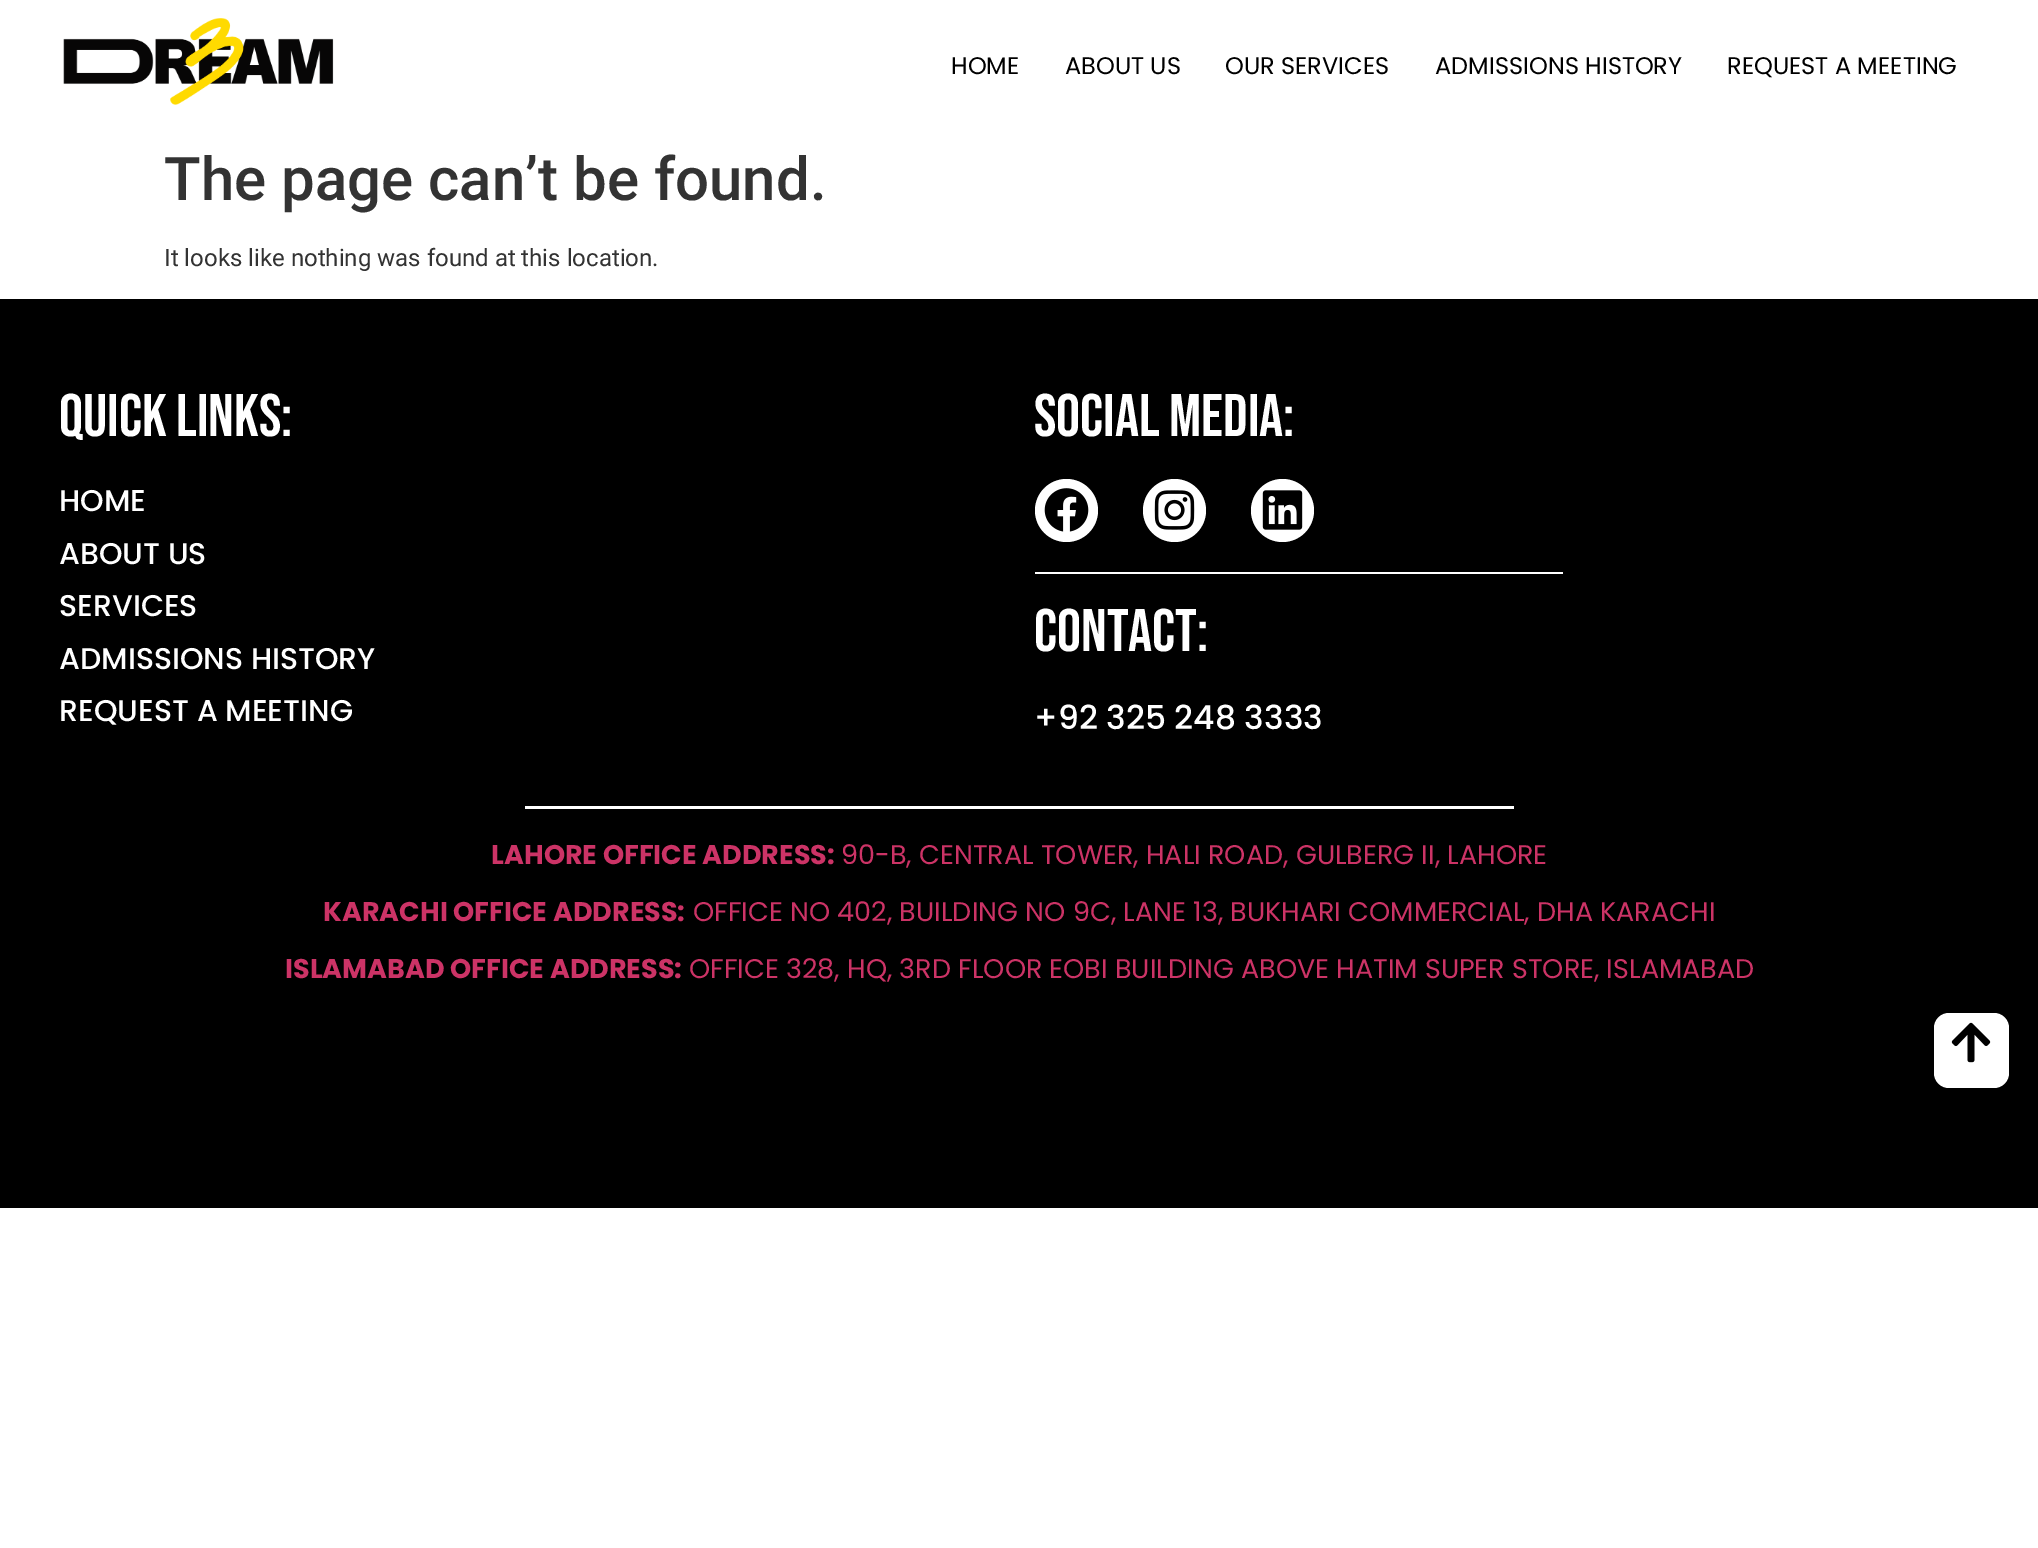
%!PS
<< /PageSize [2038 1548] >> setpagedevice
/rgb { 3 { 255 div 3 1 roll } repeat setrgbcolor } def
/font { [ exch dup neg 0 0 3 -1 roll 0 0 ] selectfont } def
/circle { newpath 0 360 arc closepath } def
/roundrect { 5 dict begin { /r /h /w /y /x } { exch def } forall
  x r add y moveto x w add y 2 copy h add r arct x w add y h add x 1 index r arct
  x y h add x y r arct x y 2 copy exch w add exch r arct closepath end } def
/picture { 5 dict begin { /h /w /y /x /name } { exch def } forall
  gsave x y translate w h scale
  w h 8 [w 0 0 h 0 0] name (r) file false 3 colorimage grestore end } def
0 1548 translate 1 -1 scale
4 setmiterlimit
255 255 255 rgb
0 0 2038 1548 rectfill
(img/1.rgb) 63 18 271 87 picture
0 0 0 rgb
0 299 2038 909 rectfill
255 255 255 rgb
1066.5 510.5 31.5 circle fill
(img/2.rgb) 1044 488 45 44 picture
1174.5 510.5 31.5 circle fill
(img/3.rgb) 1154 490 41 40 picture
1282.5 510.5 31.5 circle fill
(img/4.rgb) 1262 490 41 40 picture
1035 572 528 2 rectfill
525 806 989 3 rectfill
1934 1013 75 75 15 roundrect fill
(img/5.rgb) 1951 1022 40 41 picture
/Poppins-Regular 24 font
0 0 0 rgb
[
  [(HOME) 951 74]
  [(ABOUT US) 1065 74]
  [(OUR SERVICES) 1225 74]
  [(ADMISSIONS HISTORY) 1435 74]
  [(REQUEST A MEETING) 1727 74]
] { aload pop moveto show } forall
/Roboto-Medium 60 font
51 51 51 rgb
164 200 moveto (The page can’t be found.) show
/Roboto-Regular 24 font
164 266 moveto (It looks like nothing was found at this location.) show
/BebasNeue-Regular 60 font
255 255 255 rgb
59 436 moveto (QUICK LINKS:) show
/Poppins-Medium 30 font
[
  [(HOME) 59 511]
  [(ABOUT US) 59 564]
  [(SERVICES) 59 616]
  [(ADMISSIONS HISTORY) 59 669]
  [(REQUEST A MEETING) 59 721]
] { aload pop moveto show } forall
/BebasNeue-Regular 60 font
1034 436 moveto (SOCIAL MEDIA:) show
1034 651 moveto (CONTACT:) show
/Poppins-Medium 33 font
1034 729 moveto (+92 325 248 3333) show
/Poppins-Bold 27 font
204 51 102 rgb
491 864 moveto (LAHORE OFFICE ADDRESS:) show
/Poppins-Regular 27 font
841 864 moveto (90-B, CENTRAL TOWER, HALI ROAD, GULBERG II, LAHORE) show
/Poppins-Bold 27 font
323 921 moveto (KARACHI OFFICE ADDRESS:) show
/Poppins-Regular 27 font
693 921 moveto (OFFICE NO 402, BUILDING NO 9C, LANE 13, BUKHARI COMMERCIAL, DHA KARACHI) show
/Poppins-Bold 27 font
285 978 moveto (ISLAMABAD OFFICE ADDRESS:) show
/Poppins-Regular 27 font
689 978 moveto (OFFICE 328, HQ, 3RD FLOOR EOBI BUILDING ABOVE HATIM SUPER STORE, ISLAMABAD) show
showpage
